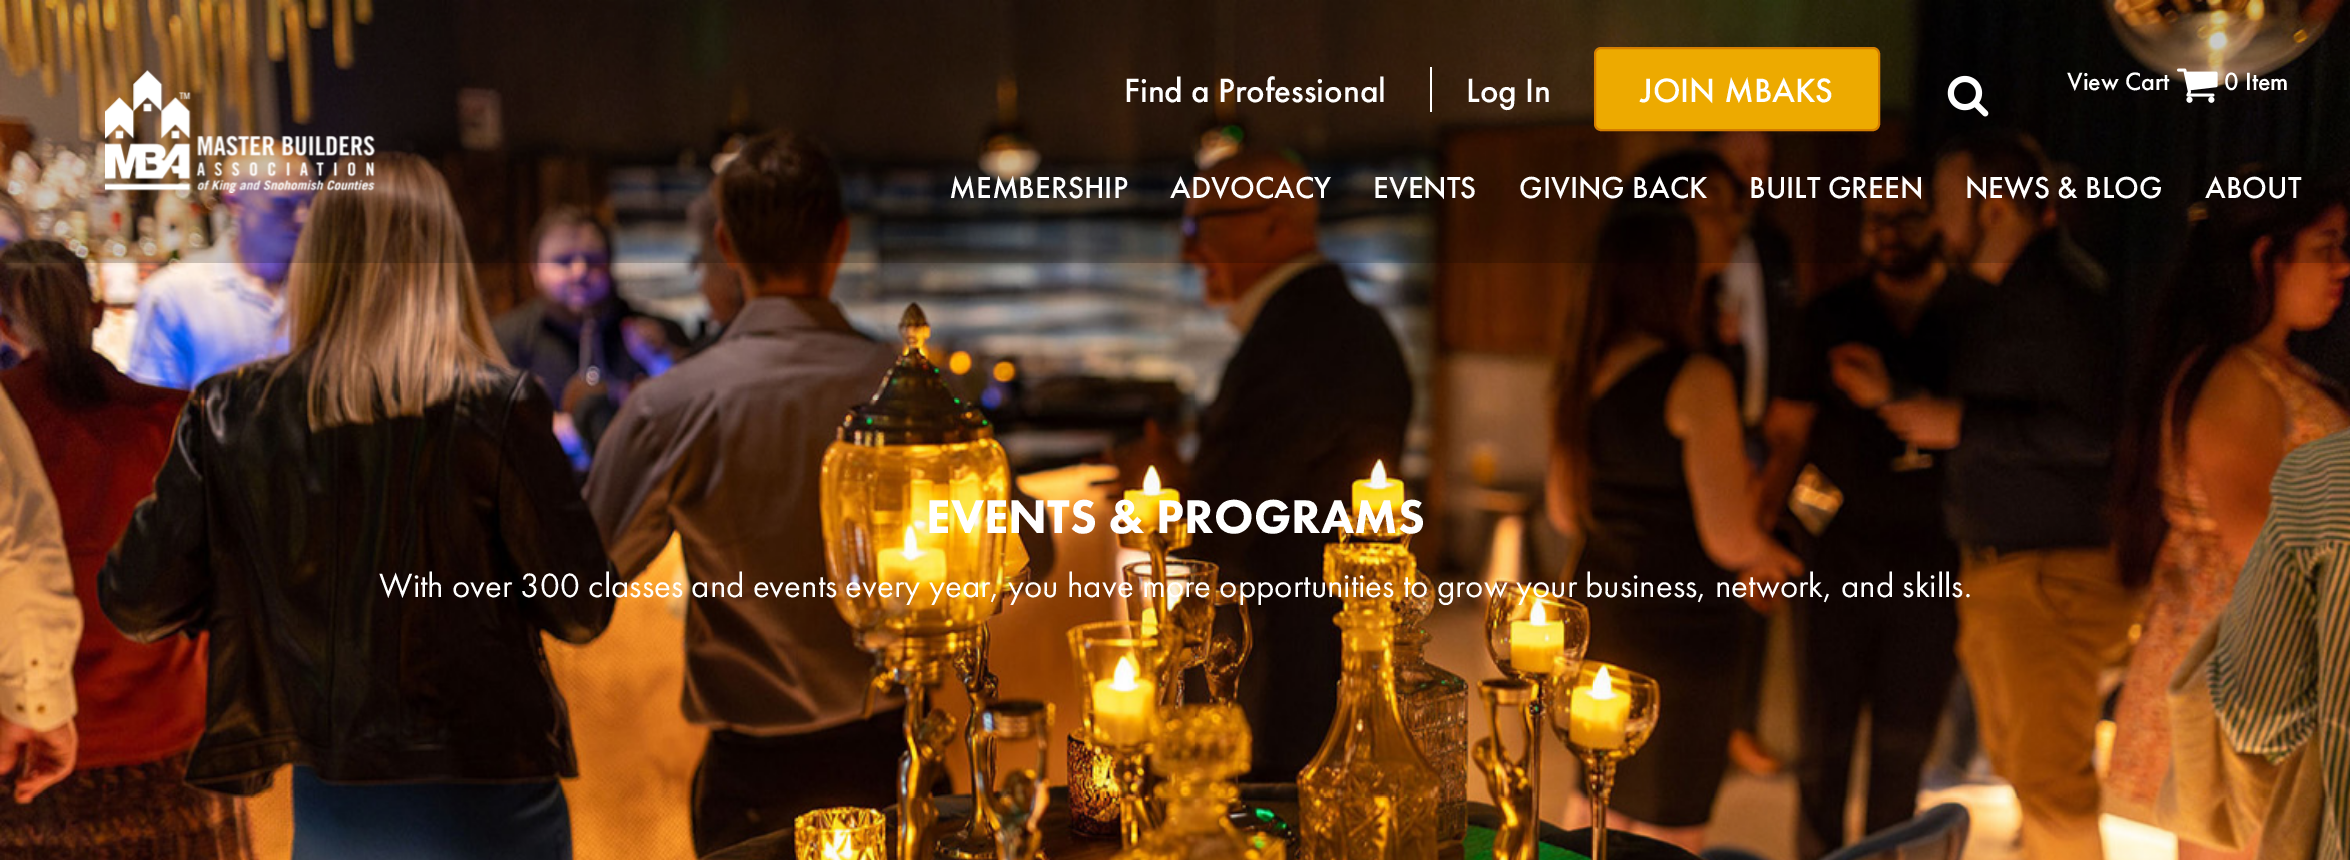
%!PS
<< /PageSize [2350 860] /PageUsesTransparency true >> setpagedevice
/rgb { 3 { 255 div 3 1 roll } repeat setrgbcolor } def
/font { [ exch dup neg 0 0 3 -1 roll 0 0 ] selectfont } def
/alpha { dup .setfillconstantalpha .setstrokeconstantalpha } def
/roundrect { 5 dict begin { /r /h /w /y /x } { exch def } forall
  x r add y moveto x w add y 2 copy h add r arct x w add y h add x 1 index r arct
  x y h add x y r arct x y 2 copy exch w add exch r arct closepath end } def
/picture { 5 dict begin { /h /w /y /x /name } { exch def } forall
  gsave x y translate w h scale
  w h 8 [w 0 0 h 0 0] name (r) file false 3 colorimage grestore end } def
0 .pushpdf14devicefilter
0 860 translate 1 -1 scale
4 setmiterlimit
255 255 255 rgb
0 0 2350 860 rectfill
(img/4.rgb) 0 0 2350 860 picture
0.2 alpha
0 0 0 rgb
0 0 2350 263 rectfill
1 alpha
(img/1.rgb) 105 70 270 123 picture
255 255 255 rgb
1430 67 2 45 rectfill
237 170 0 rgb
1595 48 284 82 6 roundrect gsave fill grestore
213 126 0 rgb
2 setlinewidth
stroke
(img/2.rgb) 1947 75 42 42 picture
(img/3.rgb) 2177 68 41 35 picture
/FuturaPT-Medium 35 font
255 255 255 rgb
[
  [(Find a Professional) 1124 102]
  [(Log In) 1466 102]
  [(JOIN MBAKS) 1640 102]
] { aload pop moveto show } forall
/FuturaPT-Medium 26 font
2067 90 moveto (View Cart) show
2224 90 moveto (0 Item) show
/FuturaPT-Medium 31.5 font
[
  [(MEMBERSHIP) 949 198]
  [(ADVOCACY) 1170 198]
  [(EVENTS) 1373 198]
  [(GIVING BACK) 1519 198]
  [(BUILT GREEN) 1749 198]
  [(NEWS & BLOG) 1965 198]
  [(ABOUT) 2205 198]
] { aload pop moveto show } forall
/FuturaPT-Black 49 font
926 533 moveto (EVENTS & PROGRAMS) show
/FuturaPT-Regular 35 font
379 597 moveto (With over 300 classes and events every year, you have more opportunities to grow your business, network, and skills.) show
.poppdf14devicefilter showpage
